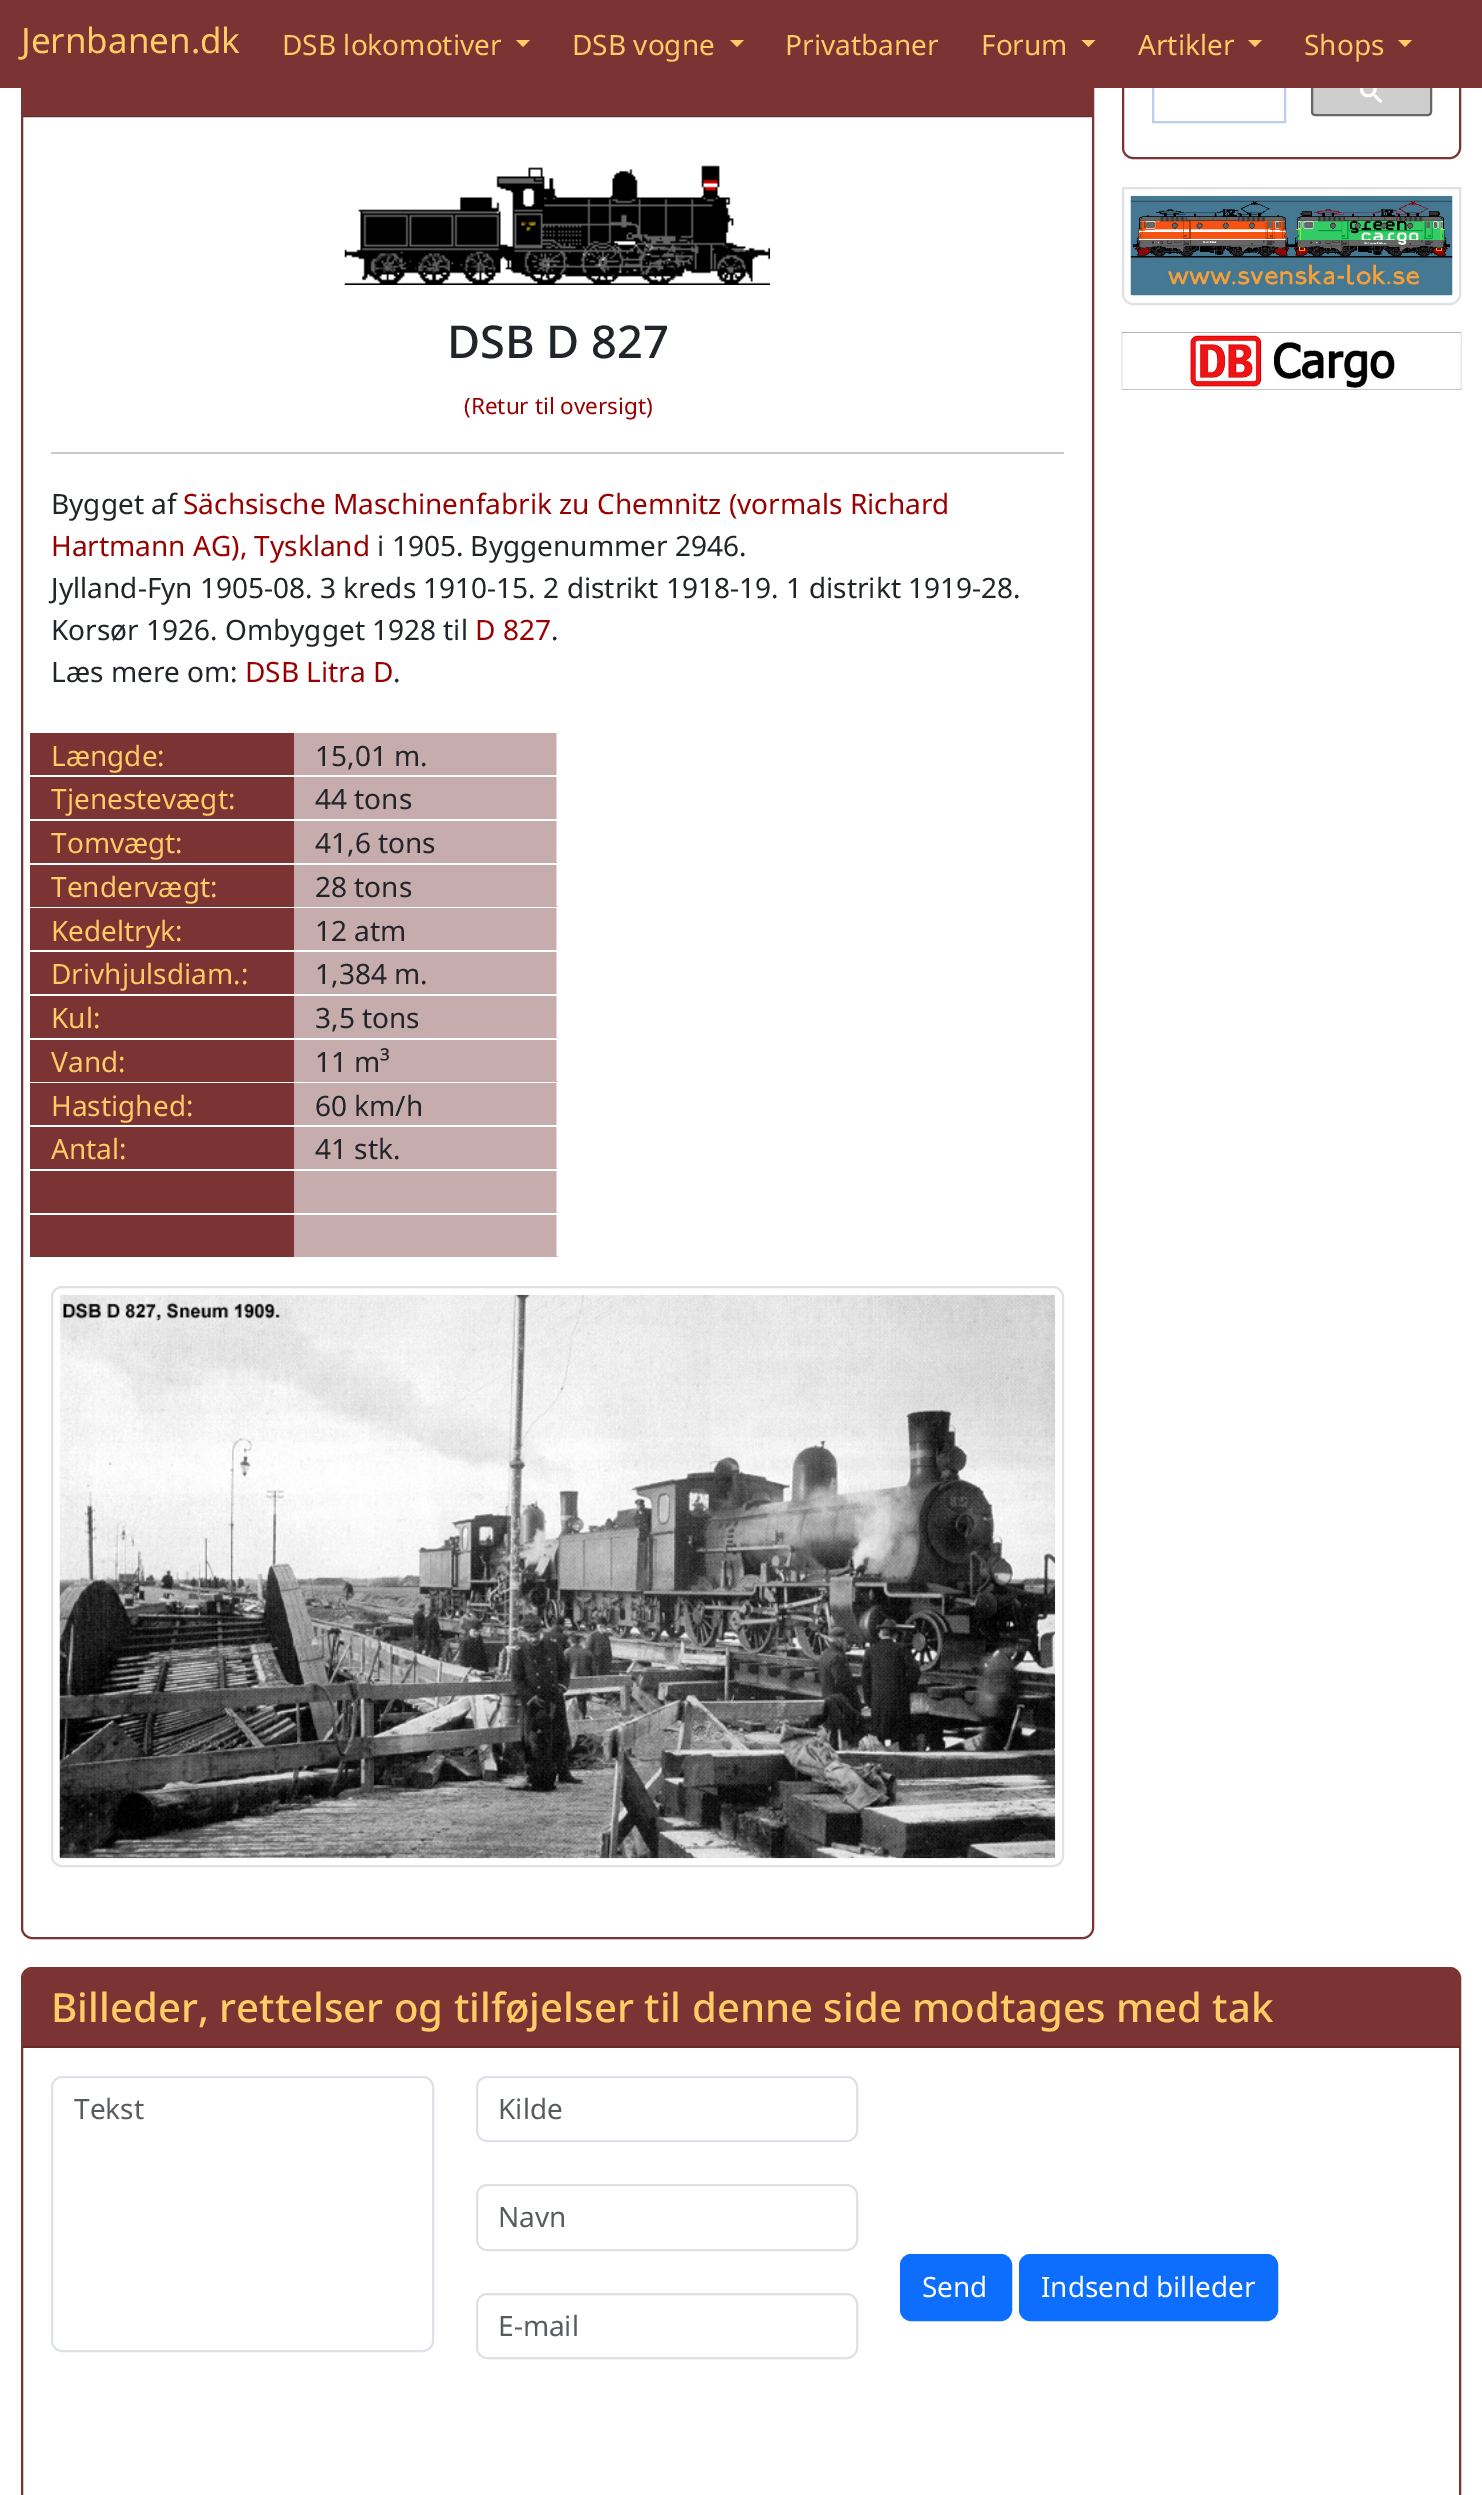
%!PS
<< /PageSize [1482 2495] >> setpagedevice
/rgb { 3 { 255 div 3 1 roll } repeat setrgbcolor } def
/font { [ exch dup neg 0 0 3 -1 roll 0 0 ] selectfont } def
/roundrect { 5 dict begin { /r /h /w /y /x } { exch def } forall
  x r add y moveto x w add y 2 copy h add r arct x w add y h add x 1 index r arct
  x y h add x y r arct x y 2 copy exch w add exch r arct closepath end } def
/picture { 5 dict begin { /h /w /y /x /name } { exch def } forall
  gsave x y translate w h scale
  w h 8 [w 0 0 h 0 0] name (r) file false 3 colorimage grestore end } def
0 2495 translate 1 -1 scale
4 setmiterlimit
255 255 255 rgb
0 0 1482 2495 rectfill
209 209 209 rgb
23 117 1069 1 rectfill
124 51 51 rgb
2 setlinewidth
1123 33 337 125 10 roundrect stroke
188 205 240 rgb
1153 62 132 60 rectstroke
206 206 206 rgb
1312 69 119 46 3 roundrect gsave fill grestore
102 102 102 rgb
stroke
124 51 51 rgb
22 33 1071 1905 10 roundrect stroke
0 0 1482 88 rectfill
255 204 102 rgb
516 40 moveto 530 40 lineto 523 47 lineto closepath fill
730 40 moveto 744 40 lineto 737 47 lineto closepath fill
1081.5 40 moveto 1095.5 40 lineto 1088.5 47 lineto closepath fill
1248 40 moveto 1262 40 lineto 1255 47 lineto closepath fill
1398 40 moveto 1412 40 lineto 1405 47 lineto closepath fill
(img/1.rgb) 1360 88 23 15 picture
222 226 230 rgb
1123 188 moveto 1460 188 lineto 1460 294 lineto 1460 299.5 1455.5 304 1450 304 curveto 1133 304 lineto 1127.5 304 1123 299.5 1123 294 curveto closepath stroke
(img/2.rgb) 1130 195 323 101 picture
(img/3.rgb) 1121 332 341 58 picture
124 51 51 rgb
23 88 1069 28 rectfill
102 42 42 rgb
23 116 1069 1 rectfill
(img/4.rgb) 344 165 426 120 picture
[
  [51 452 1013 2 200 201 202]
  [30 733 264 42 124 51 51]
  [294 733 263 42 198 172 172]
] { aload pop rgb rectfill } forall
(img/5.rgb) 556 733 2 42 picture
124 51 51 rgb
30 777 264 42 rectfill
198 172 172 rgb
294 777 264 42 rectfill
(img/6.rgb) 556 777 2 42 picture
124 51 51 rgb
30 821 264 42 rectfill
198 172 172 rgb
294 821 264 42 rectfill
(img/7.rgb) 556 821 2 42 picture
124 51 51 rgb
30 865 264 42 rectfill
198 172 172 rgb
294 865 264 42 rectfill
(img/8.rgb) 556 865 2 42 picture
124 51 51 rgb
30 908 264 42 rectfill
198 172 172 rgb
294 908 263 42 rectfill
(img/5.rgb) 556 908 2 42 picture
124 51 51 rgb
30 952 264 42 rectfill
198 172 172 rgb
294 952 264 42 rectfill
(img/6.rgb) 556 952 2 42 picture
124 51 51 rgb
30 996 264 42 rectfill
198 172 172 rgb
294 996 264 42 rectfill
(img/7.rgb) 556 996 2 42 picture
124 51 51 rgb
30 1040 264 42 rectfill
198 172 172 rgb
294 1040 264 42 rectfill
(img/8.rgb) 556 1040 2 42 picture
124 51 51 rgb
30 1083 264 42 rectfill
198 172 172 rgb
294 1083 263 42 rectfill
(img/5.rgb) 556 1083 2 42 picture
124 51 51 rgb
30 1127 264 42 rectfill
198 172 172 rgb
294 1127 264 42 rectfill
(img/6.rgb) 556 1127 2 42 picture
124 51 51 rgb
30 1171 264 42 rectfill
198 172 172 rgb
294 1171 264 42 rectfill
(img/7.rgb) 556 1171 2 42 picture
124 51 51 rgb
30 1215 264 42 rectfill
198 172 172 rgb
294 1215 264 42 rectfill
(img/8.rgb) 556 1215 2 42 picture
222 226 230 rgb
52 1287 1011 579 10 roundrect stroke
(img/9.rgb) 59 1294 997 565 picture
124 51 51 rgb
22 1968 1438 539 10 roundrect stroke
32 1969 moveto 1451 1969 lineto 1456 1969 1460 1973 1460 1978 curveto 1460 2048 lineto 23 2048 lineto 23 1978 lineto 23 1973 27 1969 32 1969 curveto closepath fill
102 42 42 rgb
23 2046 1437 2 rectfill
222 226 230 rgb
52 2077 381 274 10 roundrect stroke
477 2077 380 64 10 roundrect stroke
477 2185 380 65 10 roundrect stroke
477 2294 380 64 10 roundrect stroke
13 110 253 rgb
901 2255 110 65 10 roundrect gsave fill grestore
stroke
1020 2255 257 65 10 roundrect gsave fill grestore
stroke
/NotoSans-Regular 35 font
255 204 102 rgb
21 53 moveto (Jernbanen.dk) show
/NotoSans-Regular 28 font
[
  [(DSB lokomotiver) 282 55]
  [(DSB vogne) 572 55]
  [(Privatbaner) 785 55]
  [(Forum) 981 55]
  [(Artikler) 1138 55]
  [(Shops) 1304 55]
] { aload pop moveto show } forall
/NotoSans-Medium 45.25 font
33 37 41 rgb
447 358 moveto (DSB D 827) show
/NotoSans-Regular 22.5 font
153 0 0 rgb
464 414 moveto (\(Retur til oversigt\)) show
/NotoSans-Regular 28 font
33 37 41 rgb
51 514 moveto (Bygget af) show
153 0 0 rgb
183 514 moveto (Sächsische Maschinenfabrik zu Chemnitz \(vormals Richard) show
51 556 moveto (Hartmann AG\), Tyskland) show
33 37 41 rgb
[
  [(i 1905. Byggenummer 2946.) 377 556]
  [(Jylland-Fyn 1905-08. 3 kreds 1910-15. 2 distrikt 1918-19. 1 distrikt 1919-28.) 51 598]
  [(Korsør 1926. Ombygget 1928 til) 51 640]
] { aload pop moveto show } forall
153 0 0 rgb
475 640 moveto (D 827) show
33 37 41 rgb
551 640 moveto (.) show
51 682 moveto (Læs mere om:) show
153 0 0 rgb
245 682 moveto (DSB Litra D) show
33 37 41 rgb
393 682 moveto (.) show
255 204 102 rgb
51 766 moveto (Længde:) show
33 37 41 rgb
315 766 moveto (15,01 m.) show
255 204 102 rgb
51 809 moveto (Tjenestevægt:) show
33 37 41 rgb
315 809 moveto (44 tons) show
255 204 102 rgb
51 853 moveto (Tomvægt:) show
33 37 41 rgb
315 853 moveto (41,6 tons) show
255 204 102 rgb
51 897 moveto (Tendervægt:) show
33 37 41 rgb
315 897 moveto (28 tons) show
255 204 102 rgb
51 941 moveto (Kedeltryk:) show
33 37 41 rgb
315 941 moveto (12 atm) show
255 204 102 rgb
51 984 moveto (Drivhjulsdiam.:) show
33 37 41 rgb
315 984 moveto (1,384 m.) show
255 204 102 rgb
51 1028 moveto (Kul:) show
33 37 41 rgb
315 1028 moveto (3,5 tons) show
255 204 102 rgb
51 1072 moveto (Vand:) show
33 37 41 rgb
315 1072 moveto (11 m³) show
255 204 102 rgb
51 1116 moveto (Hastighed:) show
33 37 41 rgb
315 1116 moveto (60 km/h) show
255 204 102 rgb
51 1159 moveto (Antal:) show
33 37 41 rgb
315 1159 moveto (41 stk.) show
/NotoSans-Medium 40.15 font
255 204 102 rgb
51 2022 moveto (Billeder, rettelser og tilføjelser til denne side modtages med tak) show
/NotoSans-Regular 28 font
89 92 95 rgb
[
  [(Tekst) 74 2119]
  [(Kilde) 498 2119]
  [(Navn) 498 2227]
  [(E-mail) 498 2336]
] { aload pop moveto show } forall
255 255 255 rgb
922 2297 moveto (Send) show
1041 2297 moveto (Indsend billeder) show
showpage
